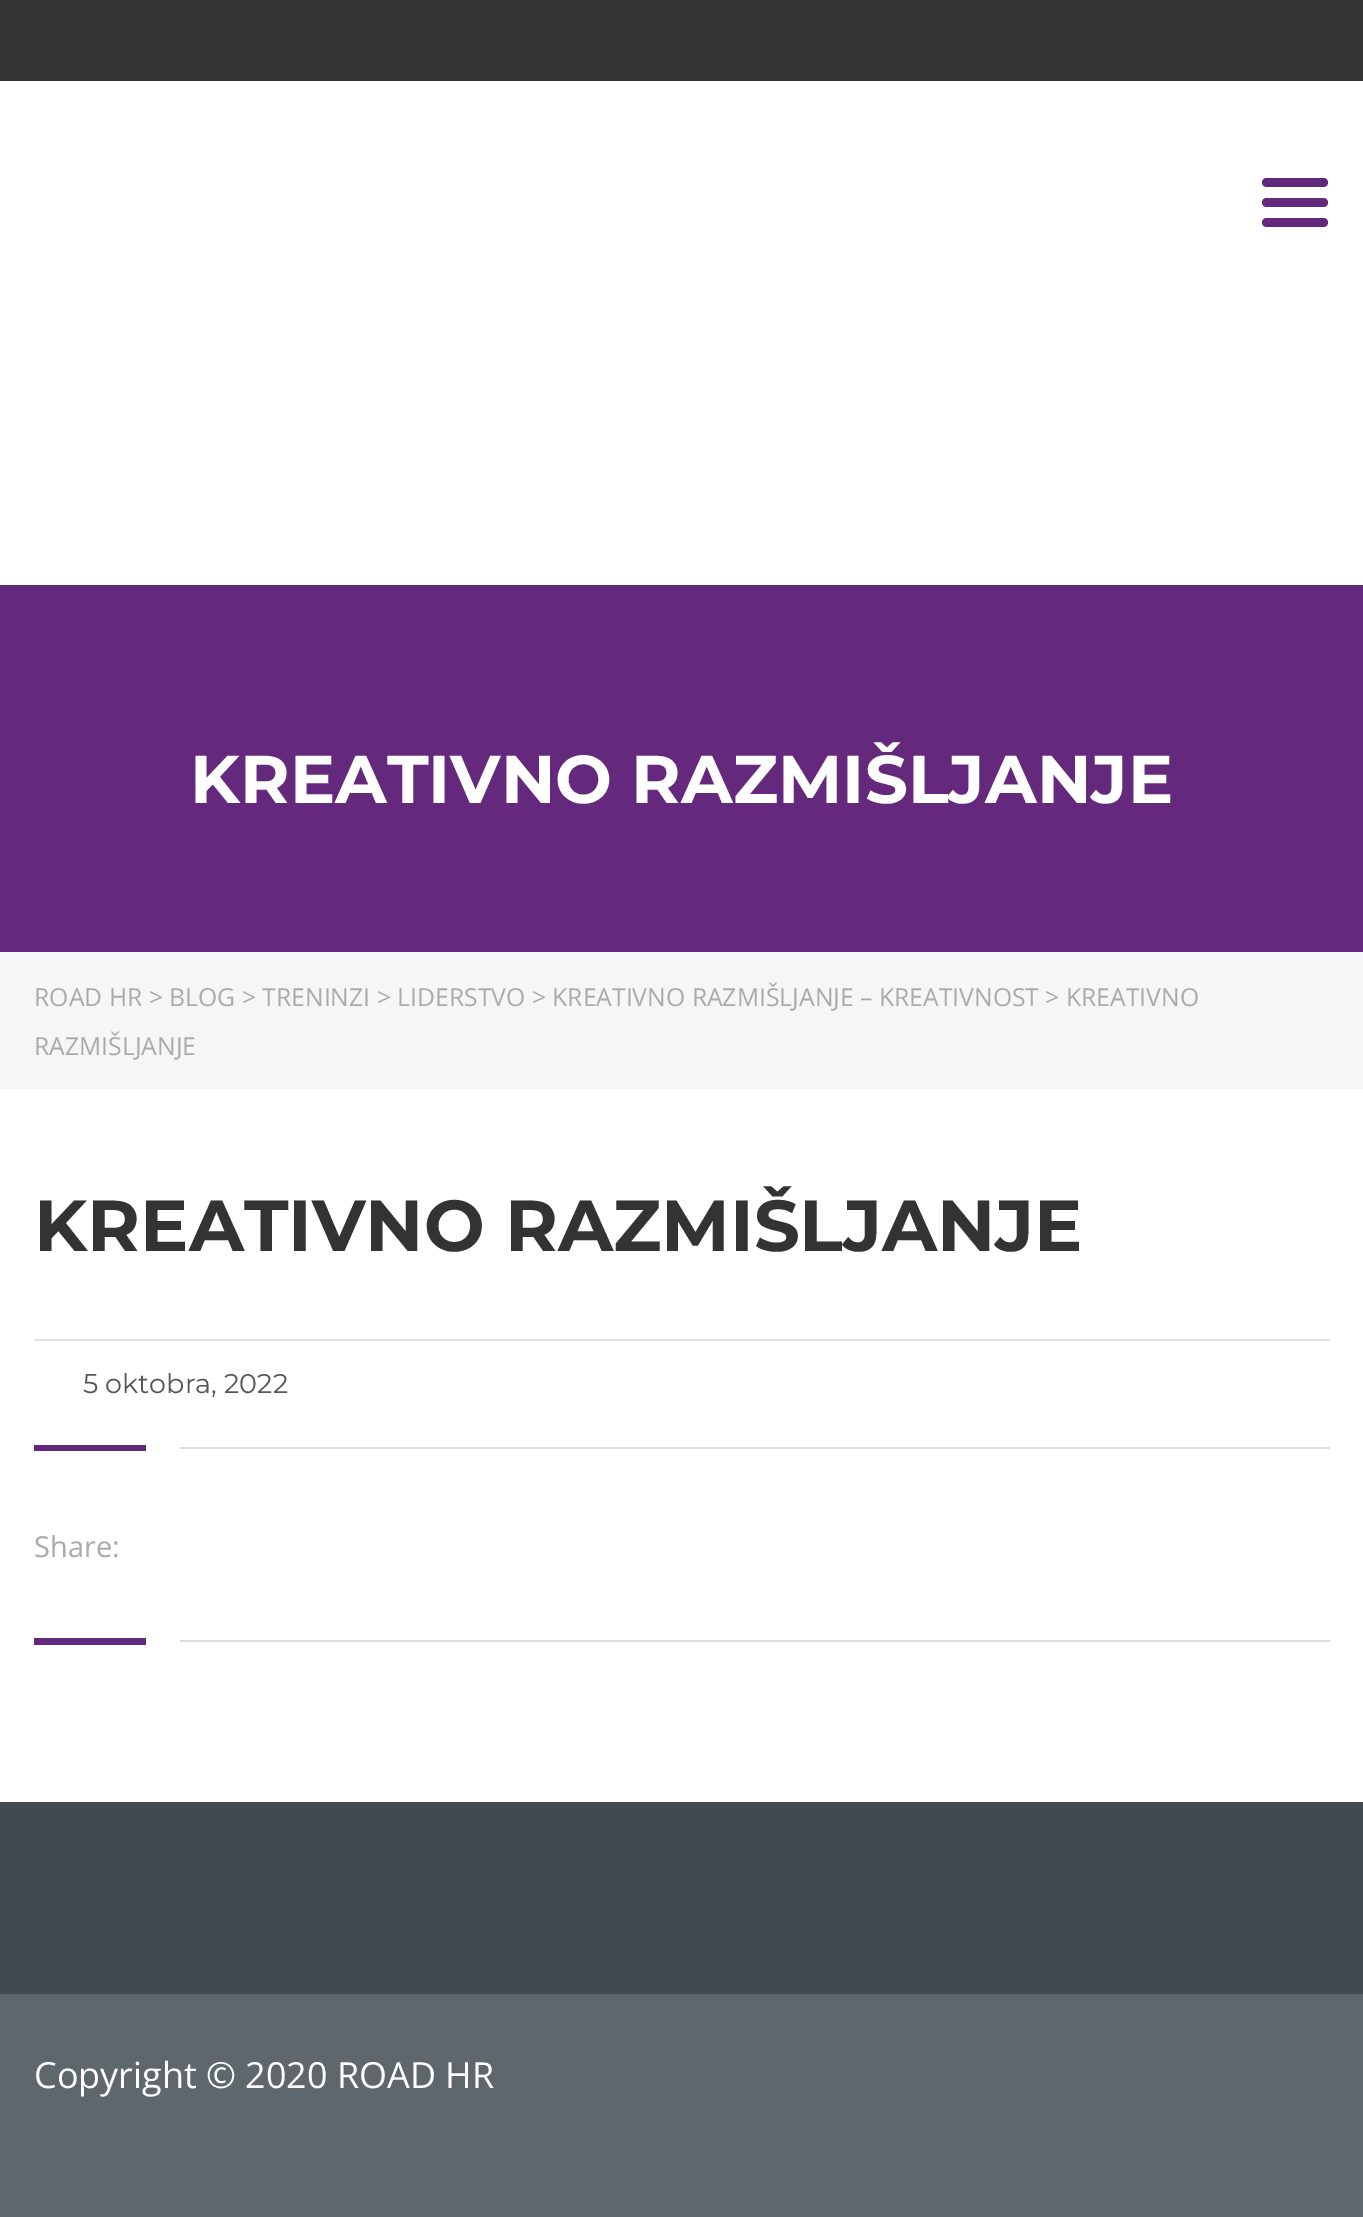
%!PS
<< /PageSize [1363 2217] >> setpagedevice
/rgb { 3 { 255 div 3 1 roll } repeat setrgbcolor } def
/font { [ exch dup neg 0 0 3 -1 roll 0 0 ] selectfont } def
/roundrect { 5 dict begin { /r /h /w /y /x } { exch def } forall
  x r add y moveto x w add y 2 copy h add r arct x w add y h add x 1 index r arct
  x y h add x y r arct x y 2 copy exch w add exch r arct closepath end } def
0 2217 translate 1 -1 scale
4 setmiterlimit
65 75 79 rgb
0 0 1363 2217 rectfill
255 255 255 rgb
0 81 1363 1721 rectfill
51 51 51 rgb
0 0 1363 81 rectfill
100 41 125 rgb
1262 178 66 9 4.5 roundrect fill
1262 198 66 9 4.5 roundrect fill
1262 218 66 9 4.5 roundrect fill
[
  [0 585 1363 367 100 41 125]
  [0 952 1363 135 246 246 246]
  [0 1087 1363 2 240 242 245]
  [34 1339 1296 2 225 226 228]
  [34 1445 112 6 100 41 125]
  [180 1447 1150 2 220 220 220]
  [34 1638 112 7 100 41 125]
  [180 1640 1150 2 220 220 220]
  [0 1994 1363 223 94 103 107]
] { aload pop rgb rectfill } forall
/Montserrat-Bold 67.5 font
255 255 255 rgb
190 803 moveto (KREATIVNO RAZMIŠLJANJE) show
/OpenSans-Regular 24.75 font
170 170 170 rgb
34 1006 moveto (ROAD HR > BLOG > TRENINZI > LIDERSTVO > KREATIVNO RAZMIŠLJANJE – KREATIVNOST > KREATIVNO) show
34 1055 moveto (RAZMIŠLJANJE) show
/Montserrat-Bold 72 font
51 51 51 rgb
34 1251 moveto (KREATIVNO RAZMIŠLJANJE) show
/Montserrat-Regular 27 font
85 85 85 rgb
83 1393 moveto (5 oktobra, 2022) show
/OpenSans-Regular 29 font
170 170 170 rgb
34 1557 moveto (Share:) show
/OpenSans-Regular 36 font
255 255 255 rgb
34 2088 moveto (Copyright © 2020 ROAD HR) show
showpage
